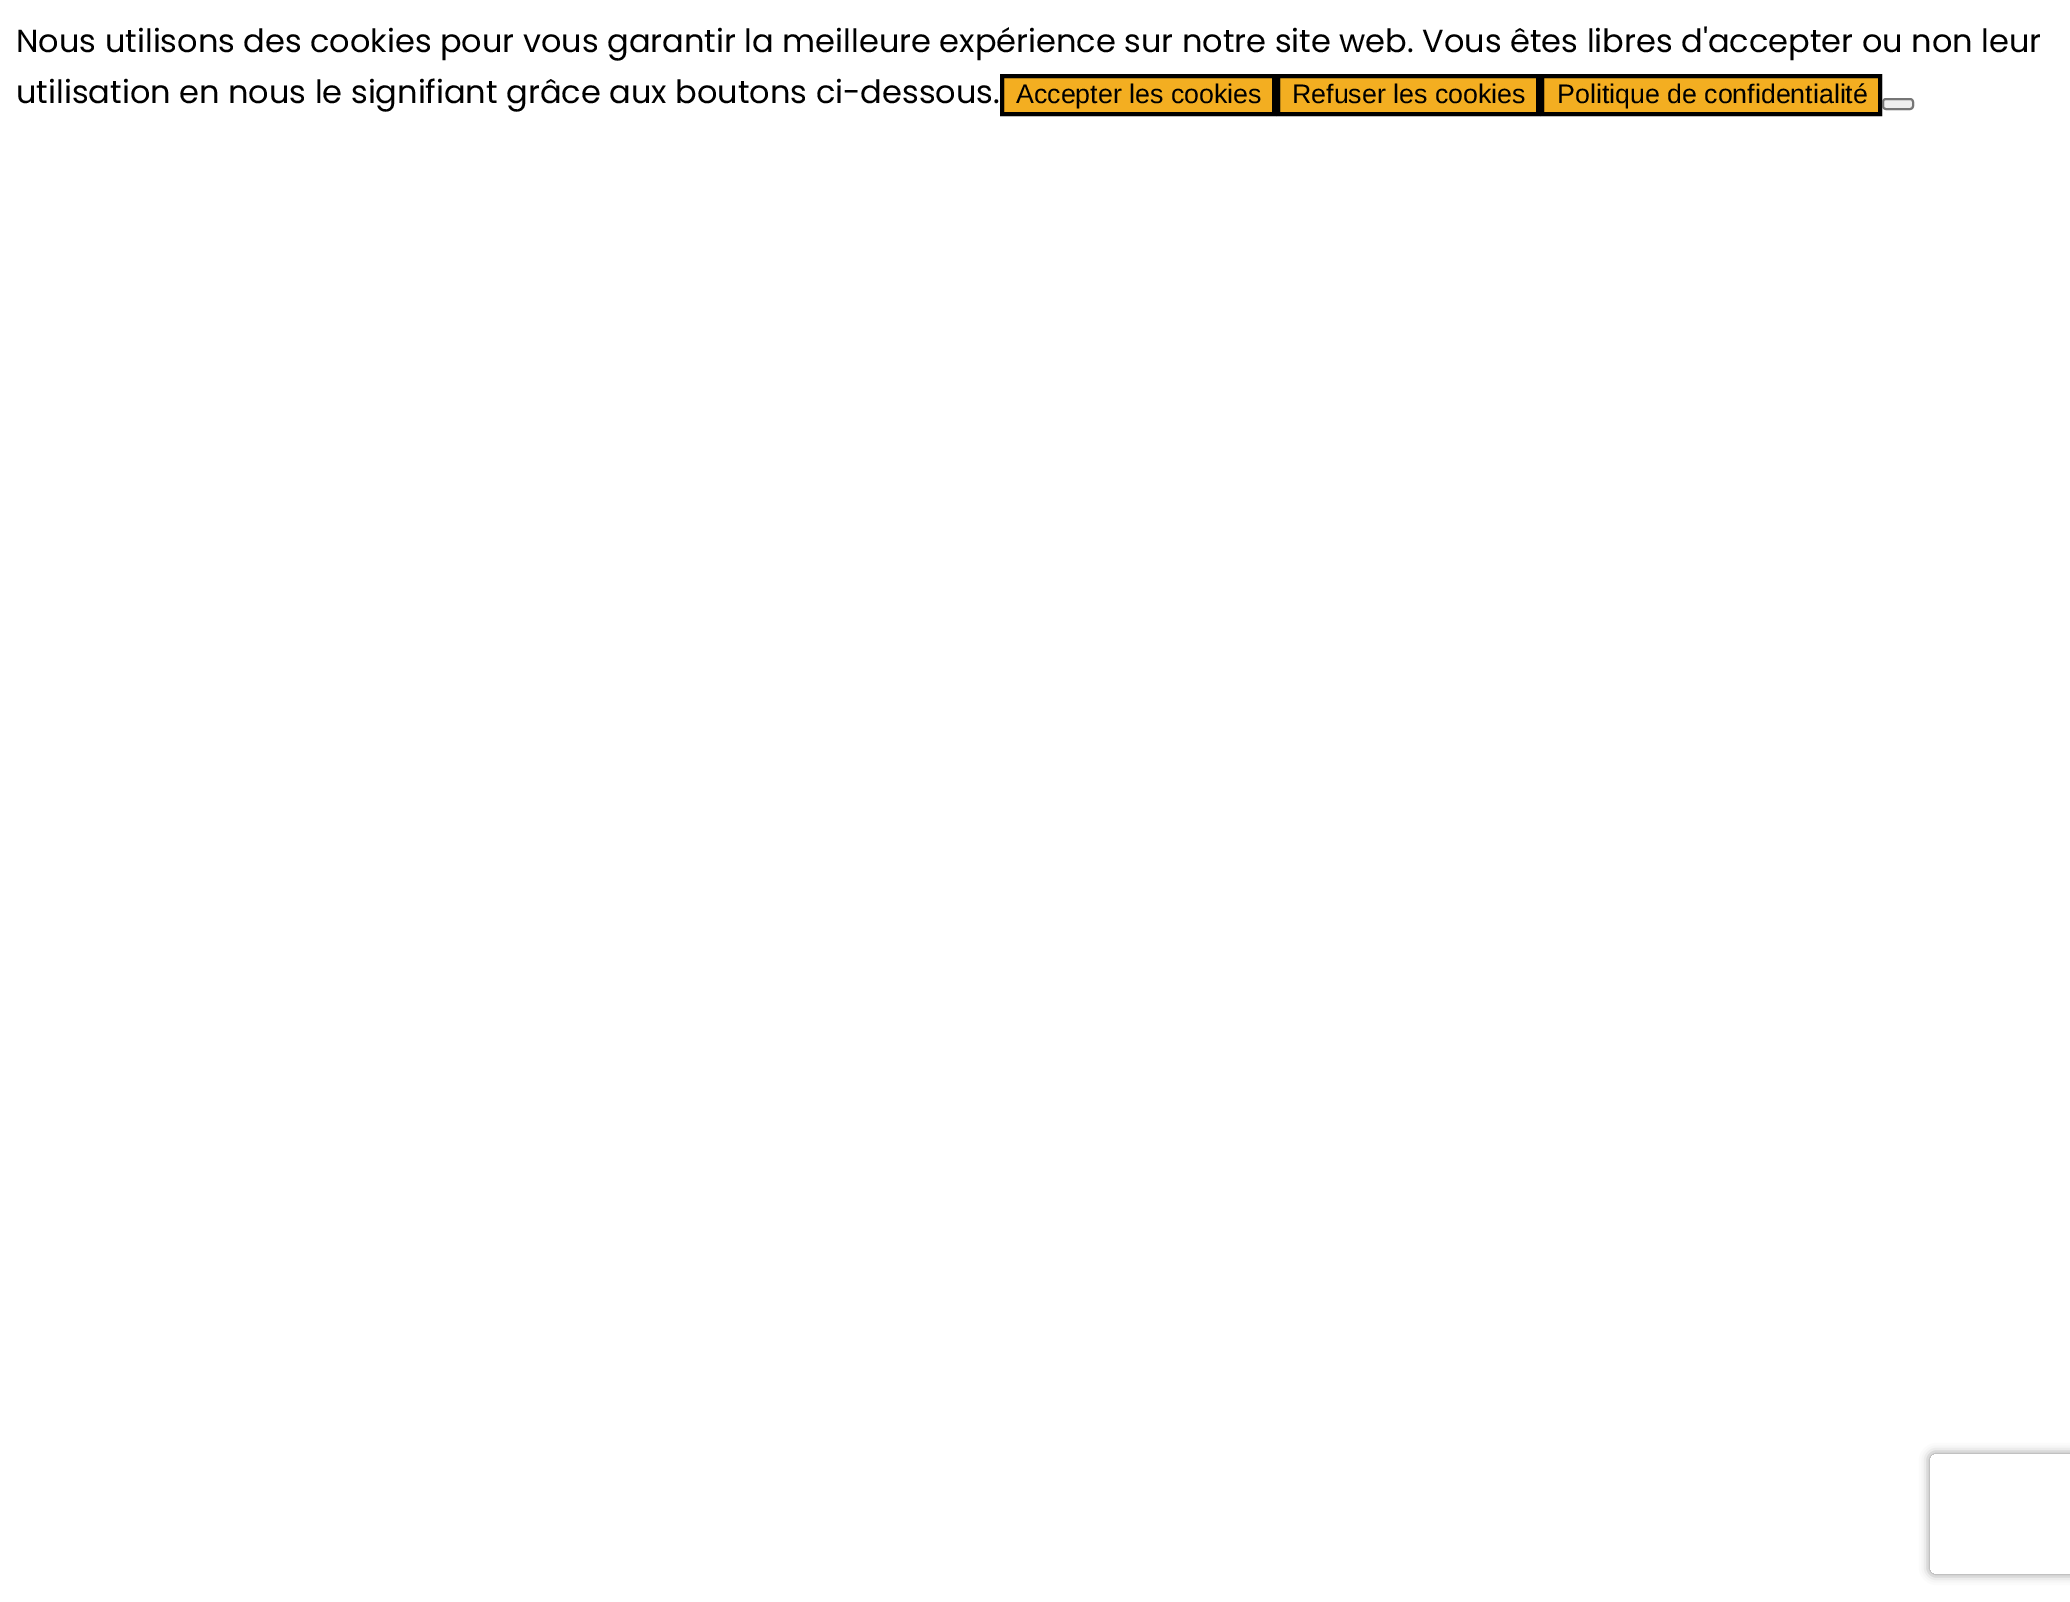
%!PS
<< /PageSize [2070 1602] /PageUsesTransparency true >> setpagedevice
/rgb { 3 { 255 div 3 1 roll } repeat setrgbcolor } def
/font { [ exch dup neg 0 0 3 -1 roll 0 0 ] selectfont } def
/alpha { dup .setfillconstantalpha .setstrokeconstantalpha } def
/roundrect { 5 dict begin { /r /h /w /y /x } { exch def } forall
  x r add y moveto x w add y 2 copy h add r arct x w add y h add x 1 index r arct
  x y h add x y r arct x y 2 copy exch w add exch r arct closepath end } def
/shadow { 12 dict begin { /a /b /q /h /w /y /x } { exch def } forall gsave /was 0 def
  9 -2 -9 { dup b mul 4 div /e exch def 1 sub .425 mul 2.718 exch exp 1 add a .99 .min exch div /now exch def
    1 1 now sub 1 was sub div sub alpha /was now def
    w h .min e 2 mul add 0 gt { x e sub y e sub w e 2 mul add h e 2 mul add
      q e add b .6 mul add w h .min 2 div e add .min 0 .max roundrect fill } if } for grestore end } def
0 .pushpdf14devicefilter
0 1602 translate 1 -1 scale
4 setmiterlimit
255 255 255 rgb
0 0 2070 1602 rectfill
243 174 33 rgb
1002 76 moveto 1274 76 lineto 1274 114 lineto 1002 114 lineto closepath gsave fill grestore
0 0 0 rgb
4 setlinewidth
stroke
243 174 33 rgb
1278 76 moveto 1538 76 lineto 1538 114 lineto 1278 114 lineto closepath gsave fill grestore
0 0 0 rgb
stroke
243 174 33 rgb
1542 76 moveto 1880 76 lineto 1880 114 lineto 1542 114 lineto closepath gsave fill grestore
0 0 0 rgb
stroke
239 239 239 rgb
1883 99 30 10 3 roundrect gsave fill grestore
118 118 118 rgb
2 setlinewidth
stroke
gsave
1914 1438 moveto 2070 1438 lineto 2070 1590 lineto 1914 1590 lineto closepath 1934 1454 moveto 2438 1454 lineto 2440 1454 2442 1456 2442 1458 curveto 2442 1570 lineto 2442 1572 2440 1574 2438 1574 curveto 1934 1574 lineto 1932 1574 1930 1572 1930 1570 curveto 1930 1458 lineto 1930 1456 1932 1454 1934 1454 curveto closepath eoclip newpath
128 128 128 rgb
1930 1454 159 120 4 5 1 shadow
grestore
/Poppins-Regular 32 font
0 0 0 rgb
16 52 moveto (Nous utilisons des cookies pour vous garantir la meilleure expérience sur notre site web. Vous êtes libres d'accepter ou non leur) show
16 103 moveto (utilisation en nous le signifiant grâce aux boutons ci-dessous.) show
/LiberationSans-Regular 26.75 font
[
  [(Accepter les cookies) 1016 103]
  [(Refuser les cookies) 1292 103]
  [(Politique de confidentialité) 1557 103]
] { aload pop moveto show } forall
.poppdf14devicefilter showpage
